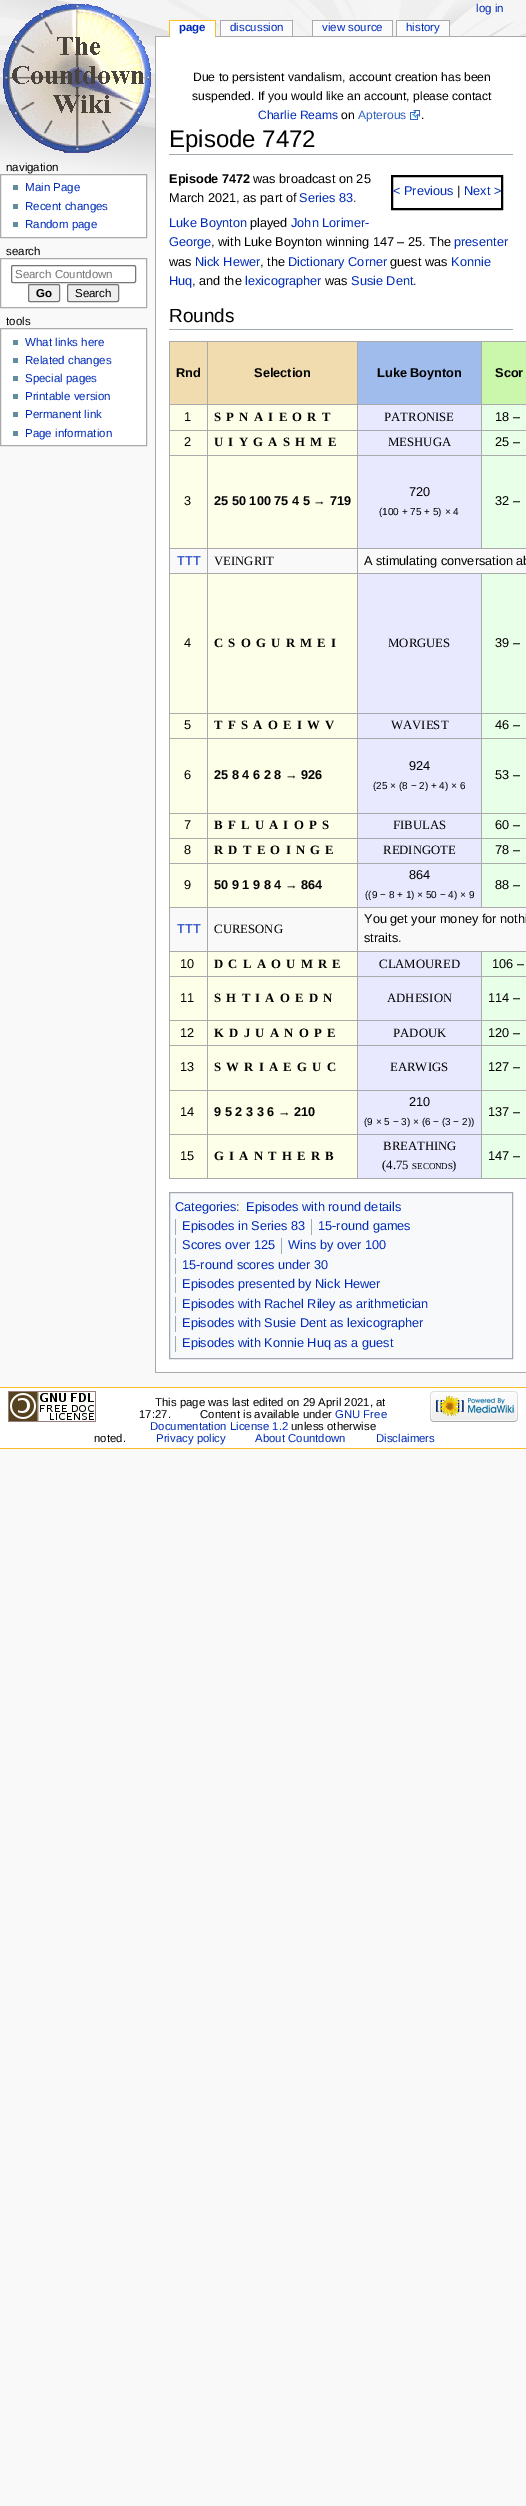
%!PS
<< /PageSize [526 2506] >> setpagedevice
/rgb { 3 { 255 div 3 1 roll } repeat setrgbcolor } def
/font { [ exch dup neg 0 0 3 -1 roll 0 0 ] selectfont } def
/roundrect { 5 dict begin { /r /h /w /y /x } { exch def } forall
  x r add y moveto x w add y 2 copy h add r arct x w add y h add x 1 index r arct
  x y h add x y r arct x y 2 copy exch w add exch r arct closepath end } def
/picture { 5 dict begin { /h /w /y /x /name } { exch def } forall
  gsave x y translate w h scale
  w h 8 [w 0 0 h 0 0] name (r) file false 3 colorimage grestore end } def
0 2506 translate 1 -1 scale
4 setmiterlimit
249 249 249 rgb
0 0 526 2506 rectfill
(img/1.rgb) 0 0 526 210 picture
(img/2.rgb) 3 4 148 149 picture
[
  [169 20 47 1 250 189 35]
  [215 20 1 16 250 189 35]
  [169 20 1 16 250 189 35]
  [155 36 371 1 170 170 170]
  [170 21 45 16 255 255 255]
  [220 20 73 1 170 170 170]
  [292 20 1 16 170 170 170]
  [220 20 1 16 170 170 170]
  [221 21 71 15 251 251 251]
  [312 20 81 1 170 170 170]
  [392 20 1 16 170 170 170]
  [312 20 1 16 170 170 170]
  [313 21 79 15 251 251 251]
  [396 20 54 1 170 170 170]
  [449 20 1 16 170 170 170]
  [396 20 1 16 170 170 170]
  [397 21 52 15 251 251 251]
] { aload pop rgb rectfill } forall
255 255 255 rgb
0.5 174.5 moveto 146.5 174.5 lineto 146.5 237.5 lineto 0.5 237.5 lineto closepath gsave fill grestore
170 170 170 rgb
stroke
[
  [13 185 5 5 99 140 156]
  [13 204 5 5 99 140 156]
  [13 222 5 5 99 140 156]
] { aload pop rgb rectfill } forall
255 255 255 rgb
0.5 258.5 moveto 146.5 258.5 lineto 146.5 307.5 lineto 0.5 307.5 lineto closepath gsave fill grestore
170 170 170 rgb
stroke
118 118 118 rgb
11.5 265.5 124 17 1.5 roundrect stroke
239 239 239 rgb
28.5 284.5 31 17 1.5 roundrect gsave fill grestore
118 118 118 rgb
stroke
239 239 239 rgb
67.5 284.5 51 17 1.5 roundrect gsave fill grestore
118 118 118 rgb
stroke
255 255 255 rgb
0.5 328.5 moveto 146.5 328.5 lineto 146.5 445.5 lineto 0.5 445.5 lineto closepath gsave fill grestore
170 170 170 rgb
stroke
[
  [13 340 5 5 99 140 156]
  [13 358 5 5 99 140 156]
  [13 376 5 5 99 140 156]
  [13 394 5 5 99 140 156]
  [13 412 5 5 99 140 156]
  [13 431 5 5 99 140 156]
  [156 37 370 1335 255 255 255]
  [155 1372 371 1 170 170 170]
  [155 36 1 1337 170 170 170]
] { aload pop rgb rectfill } forall
(img/3.rgb) 410 110 10 10 picture
162 169 177 rgb
169 154 344 1 rectfill
0 0 0 rgb
2 setlinewidth
392 176 110 33 rectstroke
[
  [169 329 344 1 162 169 177]
  [170 549 356 402 249 249 249]
  [169 341 357 1 170 170 170]
  [169 1178 357 1 170 170 170]
  [169 341 1 838 170 170 170]
  [170 342 37 62 240 220 174]
  [208 342 149 62 240 220 174]
  [481 404 45 1 170 170 170]
  [481 430 45 1 170 170 170]
  [481 455 45 1 170 170 170]
  [357 548 169 1 170 170 170]
  [481 455 1 94 170 170 170]
  [357 455 125 1 170 170 170]
  [481 430 1 26 170 170 170]
  [357 430 125 1 170 170 170]
  [481 404 1 27 170 170 170]
  [357 404 125 1 170 170 170]
  [481 573 45 1 170 170 170]
  [481 713 45 1 170 170 170]
  [481 738 45 1 170 170 170]
  [481 813 45 1 170 170 170]
  [481 838 45 1 170 170 170]
  [481 863 45 1 170 170 170]
  [357 907 169 1 170 170 170]
  [481 863 1 45 170 170 170]
  [357 863 125 1 170 170 170]
  [481 838 1 26 170 170 170]
  [357 838 125 1 170 170 170]
  [481 813 1 26 170 170 170]
  [357 813 125 1 170 170 170]
  [481 738 1 76 170 170 170]
  [357 738 125 1 170 170 170]
  [481 713 1 26 170 170 170]
  [357 713 125 1 170 170 170]
  [481 573 1 141 170 170 170]
  [357 573 125 1 170 170 170]
  [481 951 45 1 170 170 170]
  [481 976 45 1 170 170 170]
  [481 1020 45 1 170 170 170]
  [481 1045 45 1 170 170 170]
  [481 1090 45 1 170 170 170]
  [481 1134 45 1 170 170 170]
  [481 1134 1 45 170 170 170]
  [357 1134 125 1 170 170 170]
  [481 1090 1 45 170 170 170]
  [357 1090 125 1 170 170 170]
  [481 1045 1 46 170 170 170]
  [357 1045 125 1 170 170 170]
  [481 1020 1 26 170 170 170]
  [357 1020 125 1 170 170 170]
  [481 976 1 45 170 170 170]
  [357 976 125 1 170 170 170]
  [481 951 1 26 170 170 170]
  [357 951 125 1 170 170 170]
  [357 1134 1 45 170 170 170]
  [207 1134 151 1 170 170 170]
  [357 1090 1 45 170 170 170]
  [207 1090 151 1 170 170 170]
  [357 1045 1 46 170 170 170]
  [207 1045 151 1 170 170 170]
  [357 1020 1 26 170 170 170]
  [207 1020 151 1 170 170 170]
  [357 976 1 45 170 170 170]
  [207 976 151 1 170 170 170]
  [357 951 1 26 170 170 170]
  [207 951 151 1 170 170 170]
  [357 907 1 45 170 170 170]
  [207 907 151 1 170 170 170]
  [357 863 1 45 170 170 170]
  [207 863 151 1 170 170 170]
  [357 838 1 26 170 170 170]
  [207 838 151 1 170 170 170]
  [357 813 1 26 170 170 170]
  [207 813 151 1 170 170 170]
  [357 738 1 76 170 170 170]
  [207 738 151 1 170 170 170]
  [357 713 1 26 170 170 170]
  [207 713 151 1 170 170 170]
  [357 573 1 141 170 170 170]
  [207 573 151 1 170 170 170]
  [357 548 1 26 170 170 170]
  [207 548 151 1 170 170 170]
  [357 455 1 94 170 170 170]
  [207 455 151 1 170 170 170]
  [357 430 1 26 170 170 170]
  [207 430 151 1 170 170 170]
  [357 404 1 27 170 170 170]
  [207 404 151 1 170 170 170]
  [207 1134 1 45 170 170 170]
  [169 1134 39 1 170 170 170]
  [207 1090 1 45 170 170 170]
  [169 1090 39 1 170 170 170]
  [207 1045 1 46 170 170 170]
  [169 1045 39 1 170 170 170]
  [207 1020 1 26 170 170 170]
  [169 1020 39 1 170 170 170]
  [207 976 1 45 170 170 170]
  [169 976 39 1 170 170 170]
  [207 951 1 26 170 170 170]
  [169 951 39 1 170 170 170]
  [207 907 1 45 170 170 170]
  [169 907 39 1 170 170 170]
  [207 863 1 45 170 170 170]
  [169 863 39 1 170 170 170]
  [207 838 1 26 170 170 170]
  [169 838 39 1 170 170 170]
  [207 813 1 26 170 170 170]
  [169 813 39 1 170 170 170]
  [207 738 1 76 170 170 170]
  [169 738 39 1 170 170 170]
  [207 713 1 26 170 170 170]
  [169 713 39 1 170 170 170]
  [207 573 1 141 170 170 170]
  [169 573 39 1 170 170 170]
  [207 548 1 26 170 170 170]
  [169 548 39 1 170 170 170]
  [207 455 1 94 170 170 170]
  [169 455 39 1 170 170 170]
  [207 430 1 26 170 170 170]
  [169 430 39 1 170 170 170]
  [207 404 1 27 170 170 170]
  [169 404 39 1 170 170 170]
  [207 341 1 64 170 170 170]
  [358 342 123 62 159 188 236]
  [357 341 1 64 170 170 170]
  [482 342 44 62 202 247 172]
  [481 341 1 64 170 170 170]
  [170 405 37 25 254 255 232]
  [208 405 149 25 254 255 232]
  [358 405 123 25 232 232 255]
  [482 405 44 25 232 255 232]
  [170 431 37 24 254 255 232]
  [208 431 149 24 254 255 232]
  [358 431 123 24 232 232 255]
  [482 431 44 24 232 255 232]
  [170 456 37 92 254 255 232]
  [208 456 149 92 254 255 232]
  [358 456 123 92 232 232 255]
  [482 456 44 92 232 255 232]
  [170 574 37 139 254 255 232]
  [208 574 149 139 254 255 232]
  [358 574 123 139 232 232 255]
  [482 574 44 139 232 255 232]
  [170 714 37 24 254 255 232]
  [208 714 149 24 254 255 232]
  [358 714 123 24 232 232 255]
  [482 714 44 24 232 255 232]
  [170 739 37 74 254 255 232]
  [208 739 149 74 254 255 232]
  [358 739 123 74 232 232 255]
  [482 739 44 74 232 255 232]
  [170 814 37 24 254 255 232]
  [208 814 149 24 254 255 232]
  [358 814 123 24 232 232 255]
  [482 814 44 24 232 255 232]
  [170 839 37 24 254 255 232]
  [208 839 149 24 254 255 232]
  [358 839 123 24 232 232 255]
  [482 839 44 24 232 255 232]
  [170 864 37 43 254 255 232]
  [208 864 149 43 254 255 232]
  [358 864 123 43 232 232 255]
  [482 864 44 43 232 255 232]
  [170 952 37 24 254 255 232]
  [208 952 149 24 254 255 232]
  [358 952 123 24 232 232 255]
  [482 952 44 24 232 255 232]
  [170 977 37 43 254 255 232]
  [208 977 149 43 254 255 232]
  [358 977 123 43 232 232 255]
  [482 977 44 43 232 255 232]
  [170 1021 37 24 254 255 232]
  [208 1021 149 24 254 255 232]
  [358 1021 123 24 232 232 255]
  [482 1021 44 24 232 255 232]
  [170 1046 37 44 254 255 232]
  [208 1046 149 44 254 255 232]
  [358 1046 123 44 232 232 255]
  [482 1046 44 44 232 255 232]
  [170 1091 37 43 254 255 232]
  [208 1091 149 43 254 255 232]
  [358 1091 123 43 232 232 255]
  [482 1091 44 43 232 255 232]
  [170 1135 37 43 254 255 232]
  [208 1135 149 43 254 255 232]
  [358 1135 123 43 232 232 255]
  [482 1135 44 43 232 255 232]
] { aload pop rgb rectfill } forall
248 249 250 rgb
169.5 1192.5 moveto 512.5 1192.5 lineto 512.5 1358.5 lineto 169.5 1358.5 lineto closepath gsave fill grestore
162 169 177 rgb
1 setlinewidth
stroke
[
  [175 1219 1 16 162 169 177]
  [311 1219 1 16 162 169 177]
  [175 1238 1 16 162 169 177]
  [281 1238 1 16 162 169 177]
  [175 1258 1 16 162 169 177]
  [175 1277 1 16 162 169 177]
  [175 1297 1 16 162 169 177]
  [175 1316 1 16 162 169 177]
  [175 1336 1 16 162 169 177]
  [0 1388 526 60 255 255 255]
  [0 1387 526 1 250 189 35]
  [0 1448 526 1 250 189 35]
] { aload pop rgb rectfill } forall
(img/4.rgb) 8 1391 88 31 picture
(img/5.rgb) 430 1391 88 31 picture
/LiberationSans-Bold 11.5 font
0 43 184 rgb
179 31 moveto (page) show
/LiberationSans-Regular 11.5 font
[
  [(discussion) 230 31]
  [(view source) 322 31]
  [(history) 406 31]
  [(log in) 476 12]
] { aload pop moveto show } forall
0 0 0 rgb
6 171 moveto (navigation) show
0 43 184 rgb
[
  [(Main Page) 25 191]
  [(Recent changes) 25 210]
  [(Random page) 25 228]
] { aload pop moveto show } forall
0 0 0 rgb
6 255 moveto (search) show
117 117 117 rgb
15 278 moveto (Search Countdown) show
/LiberationSans-Bold 11.5 font
0 0 0 rgb
36 297 moveto (Go) show
/LiberationSans-Regular 11.5 font
75 297 moveto (Search) show
6 325 moveto (tools) show
0 43 184 rgb
[
  [(What links here) 25 346]
  [(Related changes) 25 364]
  [(Special pages) 25 382]
  [(Printable version) 25 400]
  [(Permanent link) 25 418]
  [(Page information) 25 437]
] { aload pop moveto show } forall
/LiberationSans-Regular 12.1 font
0 0 0 rgb
193 81 moveto (Due to persistent vandalism, account creation has been) show
192 100 moveto (suspended. If you would like an account, please contact) show
0 43 184 rgb
258 119 moveto (Charlie Reams) show
0 0 0 rgb
341 119 moveto (on) show
51 102 187 rgb
358 119 moveto (Apterous) show
0 0 0 rgb
421 119 moveto (.) show
/LiberationSans-Regular 24 font
169 147 moveto (Episode 7472) show
/LiberationSans-Bold 12.75 font
169 183 moveto (Episode 7472) show
/LiberationSans-Regular 12.75 font
253 183 moveto (was broadcast on 25) show
169 202 moveto (March 2021, as part of) show
0 43 184 rgb
299 202 moveto (Series 83) show
0 0 0 rgb
353 202 moveto (.) show
0 43 184 rgb
393 195 moveto (< Previous) show
0 0 0 rgb
457 195 moveto (|) show
0 43 184 rgb
464 195 moveto (Next >) show
169 227 moveto (Luke Boynton) show
0 0 0 rgb
250 227 moveto (played) show
0 43 184 rgb
291 227 moveto (John Lorimer-) show
169 246 moveto (George) show
0 0 0 rgb
211 246 moveto (, with Luke Boynton winning 147 – 25. The) show
0 43 184 rgb
454 246 moveto (presenter) show
0 0 0 rgb
169 266 moveto (was) show
0 43 184 rgb
195 266 moveto (Nick Hewer) show
0 0 0 rgb
260 266 moveto (, the) show
0 43 184 rgb
288 266 moveto (Dictionary Corner) show
0 0 0 rgb
390 266 moveto (guest was) show
0 43 184 rgb
451 266 moveto (Konnie) show
169 285 moveto (Huq) show
0 0 0 rgb
192 285 moveto (, and the) show
0 43 184 rgb
245 285 moveto (lexicographer) show
0 0 0 rgb
325 285 moveto (was) show
0 43 184 rgb
351 285 moveto (Susie Dent) show
0 0 0 rgb
413 285 moveto (.) show
/LiberationSans-Regular 19 font
169 322 moveto (Rounds) show
/LiberationSans-Bold 12.75 font
[
  [(Rnd) 176 377]
  [(Selection) 254 377]
  [(Luke Boynton) 377 377]
  [(Scor) 495 377]
] { aload pop moveto show } forall
/LiberationSans-Regular 12.75 font
184 421 moveto (1) show
/LiberationSerif-Bold 12.75 font
214 421 moveto 5.25 0 (SPNAIEORT) ashow
/LiberationSerif-Regular 12.75 font
384 421 moveto (PATRONISE) show
/LiberationSans-Regular 12.75 font
495 421 moveto (18 –) show
184 446 moveto (2) show
/LiberationSerif-Bold 12.75 font
214 446 moveto 5.25 0 (UIYGASHME) ashow
/LiberationSerif-Regular 12.75 font
388 446 moveto (MESHUGA) show
/LiberationSans-Regular 12.75 font
495 446 moveto (25 –) show
184 505 moveto (3) show
/LiberationSans-Bold 12.75 font
214 505 moveto (25 50 100 75 4 5 → 719) show
/LiberationSans-Regular 12.75 font
409 496 moveto (720) show
/LiberationSans-Regular 10 font
379 515 moveto (\(100 + 75 + 5\) × 4) show
/LiberationSans-Regular 12.75 font
495 505 moveto (32 –) show
0 43 184 rgb
177 565 moveto (TTT) show
/LiberationSerif-Regular 12.75 font
0 0 0 rgb
214 565 moveto (VEINGRIT) show
/LiberationSans-Regular 12.75 font
364 565 moveto (A stimulating conversation ab) show
184 647 moveto (4) show
/LiberationSerif-Bold 12.75 font
214 647 moveto 5.25 0 (CSOGURMEI) ashow
/LiberationSerif-Regular 12.75 font
388 647 moveto (MORGUES) show
/LiberationSans-Regular 12.75 font
495 647 moveto (39 –) show
184 729 moveto (5) show
/LiberationSerif-Bold 12.75 font
214 729 moveto 5.25 0 (TFSAOEIWV) ashow
/LiberationSerif-Regular 12.75 font
391 729 moveto (WAVIEST) show
/LiberationSans-Regular 12.75 font
495 729 moveto (46 –) show
184 779 moveto (6) show
/LiberationSans-Bold 12.75 font
214 779 moveto (25 8 4 6 2 8 → 926) show
/LiberationSans-Regular 12.75 font
409 770 moveto (924) show
/LiberationSans-Regular 10 font
373 789 moveto (\(25 × \(8 − 2\) + 4\) × 6) show
/LiberationSans-Regular 12.75 font
495 779 moveto (53 –) show
184 829 moveto (7) show
/LiberationSerif-Bold 12.75 font
214 829 moveto 5.25 0 (BFLUAIOPS) ashow
/LiberationSerif-Regular 12.75 font
393 829 moveto (FIBULAS) show
/LiberationSans-Regular 12.75 font
495 829 moveto (60 –) show
184 854 moveto (8) show
/LiberationSerif-Bold 12.75 font
214 854 moveto 5.25 0 (RDTEOINGE) ashow
/LiberationSerif-Regular 12.75 font
383 854 moveto (REDINGOTE) show
/LiberationSans-Regular 12.75 font
495 854 moveto (78 –) show
184 889 moveto (9) show
/LiberationSans-Bold 12.75 font
214 889 moveto (50 9 1 9 8 4 → 864) show
/LiberationSans-Regular 12.75 font
409 879 moveto (864) show
/LiberationSans-Regular 10 font
365 898 moveto (\(\(9 − 8 + 1\) × 50 − 4\) × 9) show
/LiberationSans-Regular 12.75 font
495 889 moveto (88 –) show
0 43 184 rgb
177 933 moveto (TTT) show
/LiberationSerif-Regular 12.75 font
0 0 0 rgb
214 933 moveto (CURESONG) show
/LiberationSans-Regular 12.75 font
[
  [(You get your money for nothi) 364 923]
  [(straits.) 364 942]
  [(10) 180 968]
] { aload pop moveto show } forall
/LiberationSerif-Bold 12.75 font
214 968 moveto 5.25 0 (DCLAOUMRE) ashow
/LiberationSerif-Regular 12.75 font
379 968 moveto (CLAMOURED) show
/LiberationSans-Regular 12.75 font
492 968 moveto (106 –) show
180 1002 moveto (11) show
/LiberationSerif-Bold 12.75 font
214 1002 moveto 5.25 0 (SHTIAOEDN) ashow
/LiberationSerif-Regular 12.75 font
387 1002 moveto (ADHESION) show
/LiberationSans-Regular 12.75 font
488 1002 moveto (114 –) show
180 1037 moveto (12) show
/LiberationSerif-Bold 12.75 font
214 1037 moveto 5.25 0 (KDJUANOPE) ashow
/LiberationSerif-Regular 12.75 font
393 1037 moveto (PADOUK) show
/LiberationSans-Regular 12.75 font
488 1037 moveto (120 –) show
180 1071 moveto (13) show
/LiberationSerif-Bold 12.75 font
214 1071 moveto 5.25 0 (SWRIAEGUC) ashow
/LiberationSerif-Regular 12.75 font
390 1071 moveto (EARWIGS) show
/LiberationSans-Regular 12.75 font
488 1071 moveto (127 –) show
180 1116 moveto (14) show
/LiberationSans-Bold 12.75 font
214 1116 moveto (9 5 2 3 3 6 → 210) show
/LiberationSans-Regular 12.75 font
409 1106 moveto (210) show
/LiberationSans-Regular 10 font
364 1125 moveto (\(9 × 5 − 3\) × \(6 − \(3 − 2\)\)) show
/LiberationSans-Regular 12.75 font
488 1116 moveto (137 –) show
180 1160 moveto (15) show
/LiberationSerif-Bold 12.75 font
214 1160 moveto 5.25 0 (GIANTHERB) ashow
/LiberationSerif-Regular 12.75 font
383 1150 moveto (BREATHING) show
382 1169 moveto (\(4.75) show
/LiberationSerif-Regular 9 font
412 1169 moveto (SECONDS) show
/LiberationSerif-Regular 12.75 font
452 1169 moveto (\)) show
/LiberationSans-Regular 12.75 font
488 1160 moveto (147 –) show
0 43 184 rgb
[
  [(Categories) 175 1211]
  [(Episodes with round details) 246 1211]
  [(Episodes in Series 83) 182 1230]
  [(15-round games) 318 1230]
  [(Scores over 125) 182 1249]
  [(Wins by over 100) 288 1249]
  [(15-round scores under 30) 182 1269]
  [(Episodes presented by Nick Hewer) 182 1288]
  [(Episodes with Rachel Riley as arithmetician) 182 1308]
  [(Episodes with Susie Dent as lexicographer) 182 1327]
  [(Episodes with Konnie Huq as a guest) 182 1347]
] { aload pop moveto show } forall
0 0 0 rgb
236 1211 moveto (:) show
/LiberationSans-Regular 11.4 font
[
  [(This page was last edited on 29 April 2021, at) 155 1406]
  [(17:27.) 139 1418]
  [(Content is available under) 200 1418]
] { aload pop moveto show } forall
0 43 184 rgb
335 1418 moveto (GNU Free) show
150 1430 moveto (Documentation License 1.2) show
0 0 0 rgb
291 1430 moveto (unless otherwise) show
94 1442 moveto (noted.) show
0 43 184 rgb
[
  [(Privacy policy) 156 1442]
  [(About Countdown) 255 1442]
  [(Disclaimers) 376 1442]
] { aload pop moveto show } forall
showpage
